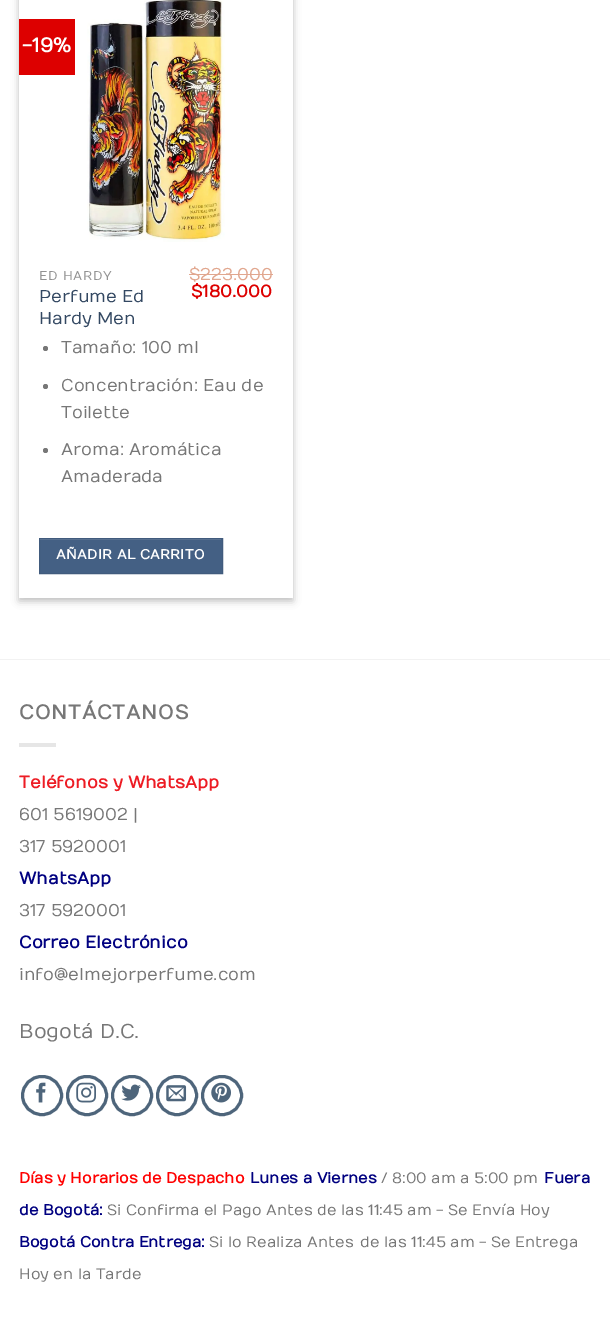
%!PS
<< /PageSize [610 1329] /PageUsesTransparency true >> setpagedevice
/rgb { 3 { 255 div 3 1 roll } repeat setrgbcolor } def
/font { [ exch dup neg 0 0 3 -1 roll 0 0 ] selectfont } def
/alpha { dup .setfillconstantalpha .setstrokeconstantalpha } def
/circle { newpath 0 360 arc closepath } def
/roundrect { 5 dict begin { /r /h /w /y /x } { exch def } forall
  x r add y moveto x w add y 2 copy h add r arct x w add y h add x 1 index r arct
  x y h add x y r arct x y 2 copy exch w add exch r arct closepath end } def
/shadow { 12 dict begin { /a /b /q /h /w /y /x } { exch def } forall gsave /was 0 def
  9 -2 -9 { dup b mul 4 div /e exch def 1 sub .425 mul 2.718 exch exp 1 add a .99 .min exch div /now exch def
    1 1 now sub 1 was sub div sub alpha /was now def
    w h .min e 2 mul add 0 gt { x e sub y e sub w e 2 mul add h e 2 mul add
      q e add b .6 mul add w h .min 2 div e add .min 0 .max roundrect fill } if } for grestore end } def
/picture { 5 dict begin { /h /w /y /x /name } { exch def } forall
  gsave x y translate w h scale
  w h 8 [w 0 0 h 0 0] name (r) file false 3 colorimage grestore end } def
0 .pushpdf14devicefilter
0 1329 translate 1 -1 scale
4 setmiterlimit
255 255 255 rgb
0 0 610 1329 rectfill
0 0 0 rgb
19 -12 274 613 0 4 0.23 shadow
24 -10 264 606 0 4 0.16 shadow
255 255 255 rgb
19 0 274 598 rectfill
221 0 0 rgb
19 19 56 56 rectfill
(img/1.rgb) 87 0 138 242 picture
225 167 143 rgb
189 274 84 1 rectfill
119 119 119 rgb
45.5 348.5 2.5 circle fill
45.5 386.5 2.5 circle fill
45.5 450.5 2.5 circle fill
68 96 132 rgb
39.5 538.5 moveto 222.5 538.5 lineto 222.5 573.5 lineto 39.5 573.5 lineto closepath gsave fill grestore
65 91 125 rgb
stroke
gsave
40 539 181 34 rectclip
87 112 144 rgb
-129 415 moveto 390 415 lineto 390 696 lineto -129 696 lineto closepath -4 540 moveto 268 540 lineto 268 574 lineto -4 574 lineto closepath eofill
grestore
242 242 242 rgb
0 659 610 1 rectfill
230 230 230 rgb
19 743 37 4 rectfill
78 101 123 rgb
3 setlinewidth
22.5 1076.5 39 38 19 roundrect stroke
(img/2.rgb) 36 1082 10 21 picture
67.5 1076.5 39 38 19 roundrect stroke
(img/3.rgb) 76 1082 20 21 picture
112.5 1076.5 39 38 19 roundrect stroke
(img/4.rgb) 121 1084 20 17 picture
157.5 1076.5 39 38 19 roundrect stroke
(img/5.rgb) 166 1085 21 17 picture
202.5 1076.5 39 38 19 roundrect stroke
(img/6.rgb) 211 1082 20 21 picture
/Numans-Bold 20 font
255 255 255 rgb
22 52 moveto (-19%) show
/Numans-Regular 12.75 font
146 146 146 rgb
39 280 moveto 0.75 0 (ED HARDY) ashow
/Numans-Regular 17 font
51 72 98 rgb
39 302 moveto (Perfume Ed) show
39 324 moveto (Hardy Men) show
225 167 143 rgb
189 280 moveto ($223.000) show
/Numans-Bold 17 font
221 0 0 rgb
191 297 moveto ($180.000) show
/Numans-Regular 17 font
119 119 119 rgb
[
  [(Tamaño: 100 ml) 61 353]
  [(Concentración: Eau de) 61 391]
  [(Toilette) 61 418]
  [(Aroma: Aromática) 61 455]
  [(Amaderada) 61 482]
] { aload pop moveto show } forall
/Numans-Bold 13.6 font
255 255 255 rgb
56 559 moveto 0.4 0 (AÑADIR AL CARRITO) ashow
/Numans-Bold 20 font
119 119 119 rgb
19 719 moveto 1 0 (CONTÁCTANOS) ashow
/Numans-Bold 17 font
237 28 36 rgb
19 788 moveto (Teléfonos y WhatsApp) show
/Numans-Regular 17 font
119 119 119 rgb
19 820 moveto (601 5619002 |) show
19 852 moveto (317 5920001) show
/Numans-Bold 17 font
0 0 128 rgb
19 884 moveto (WhatsApp) show
/Numans-Regular 17 font
119 119 119 rgb
19 916 moveto (317 5920001) show
/Numans-Bold 17 font
0 0 128 rgb
19 948 moveto (Correo Electrónico) show
/Numans-Regular 17 font
119 119 119 rgb
19 980 moveto (info@elmejorperfume.com) show
/Numans-Regular 20 font
19 1038 moveto (Bogotá D.C.) show
/Numans-Bold 15 font
255 0 0 rgb
19 1183 moveto (Días y Horarios de Despacho) show
0 0 128 rgb
250 1183 moveto (Lunes a Viernes) show
/Numans-Regular 15 font
119 119 119 rgb
381 1183 moveto (/ 8:00 am a 5:00 pm) show
/Numans-Bold 15 font
0 0 128 rgb
544 1183 moveto (Fuera) show
19 1215 moveto (de Bogotá:) show
/Numans-Regular 15 font
119 119 119 rgb
107 1215 moveto (Si Confirma el Pago Antes de las 11:45 am - Se Envía Hoy) show
/Numans-Bold 15 font
0 0 128 rgb
19 1247 moveto (Bogotá Contra Entrega:) show
/Numans-Regular 15 font
119 119 119 rgb
[
  [(Si lo Realiza Antes) 209 1247]
  [(de las 11:45 am - Se Entrega) 360 1247]
  [(Hoy en la Tarde) 19 1279]
] { aload pop moveto show } forall
.poppdf14devicefilter showpage
